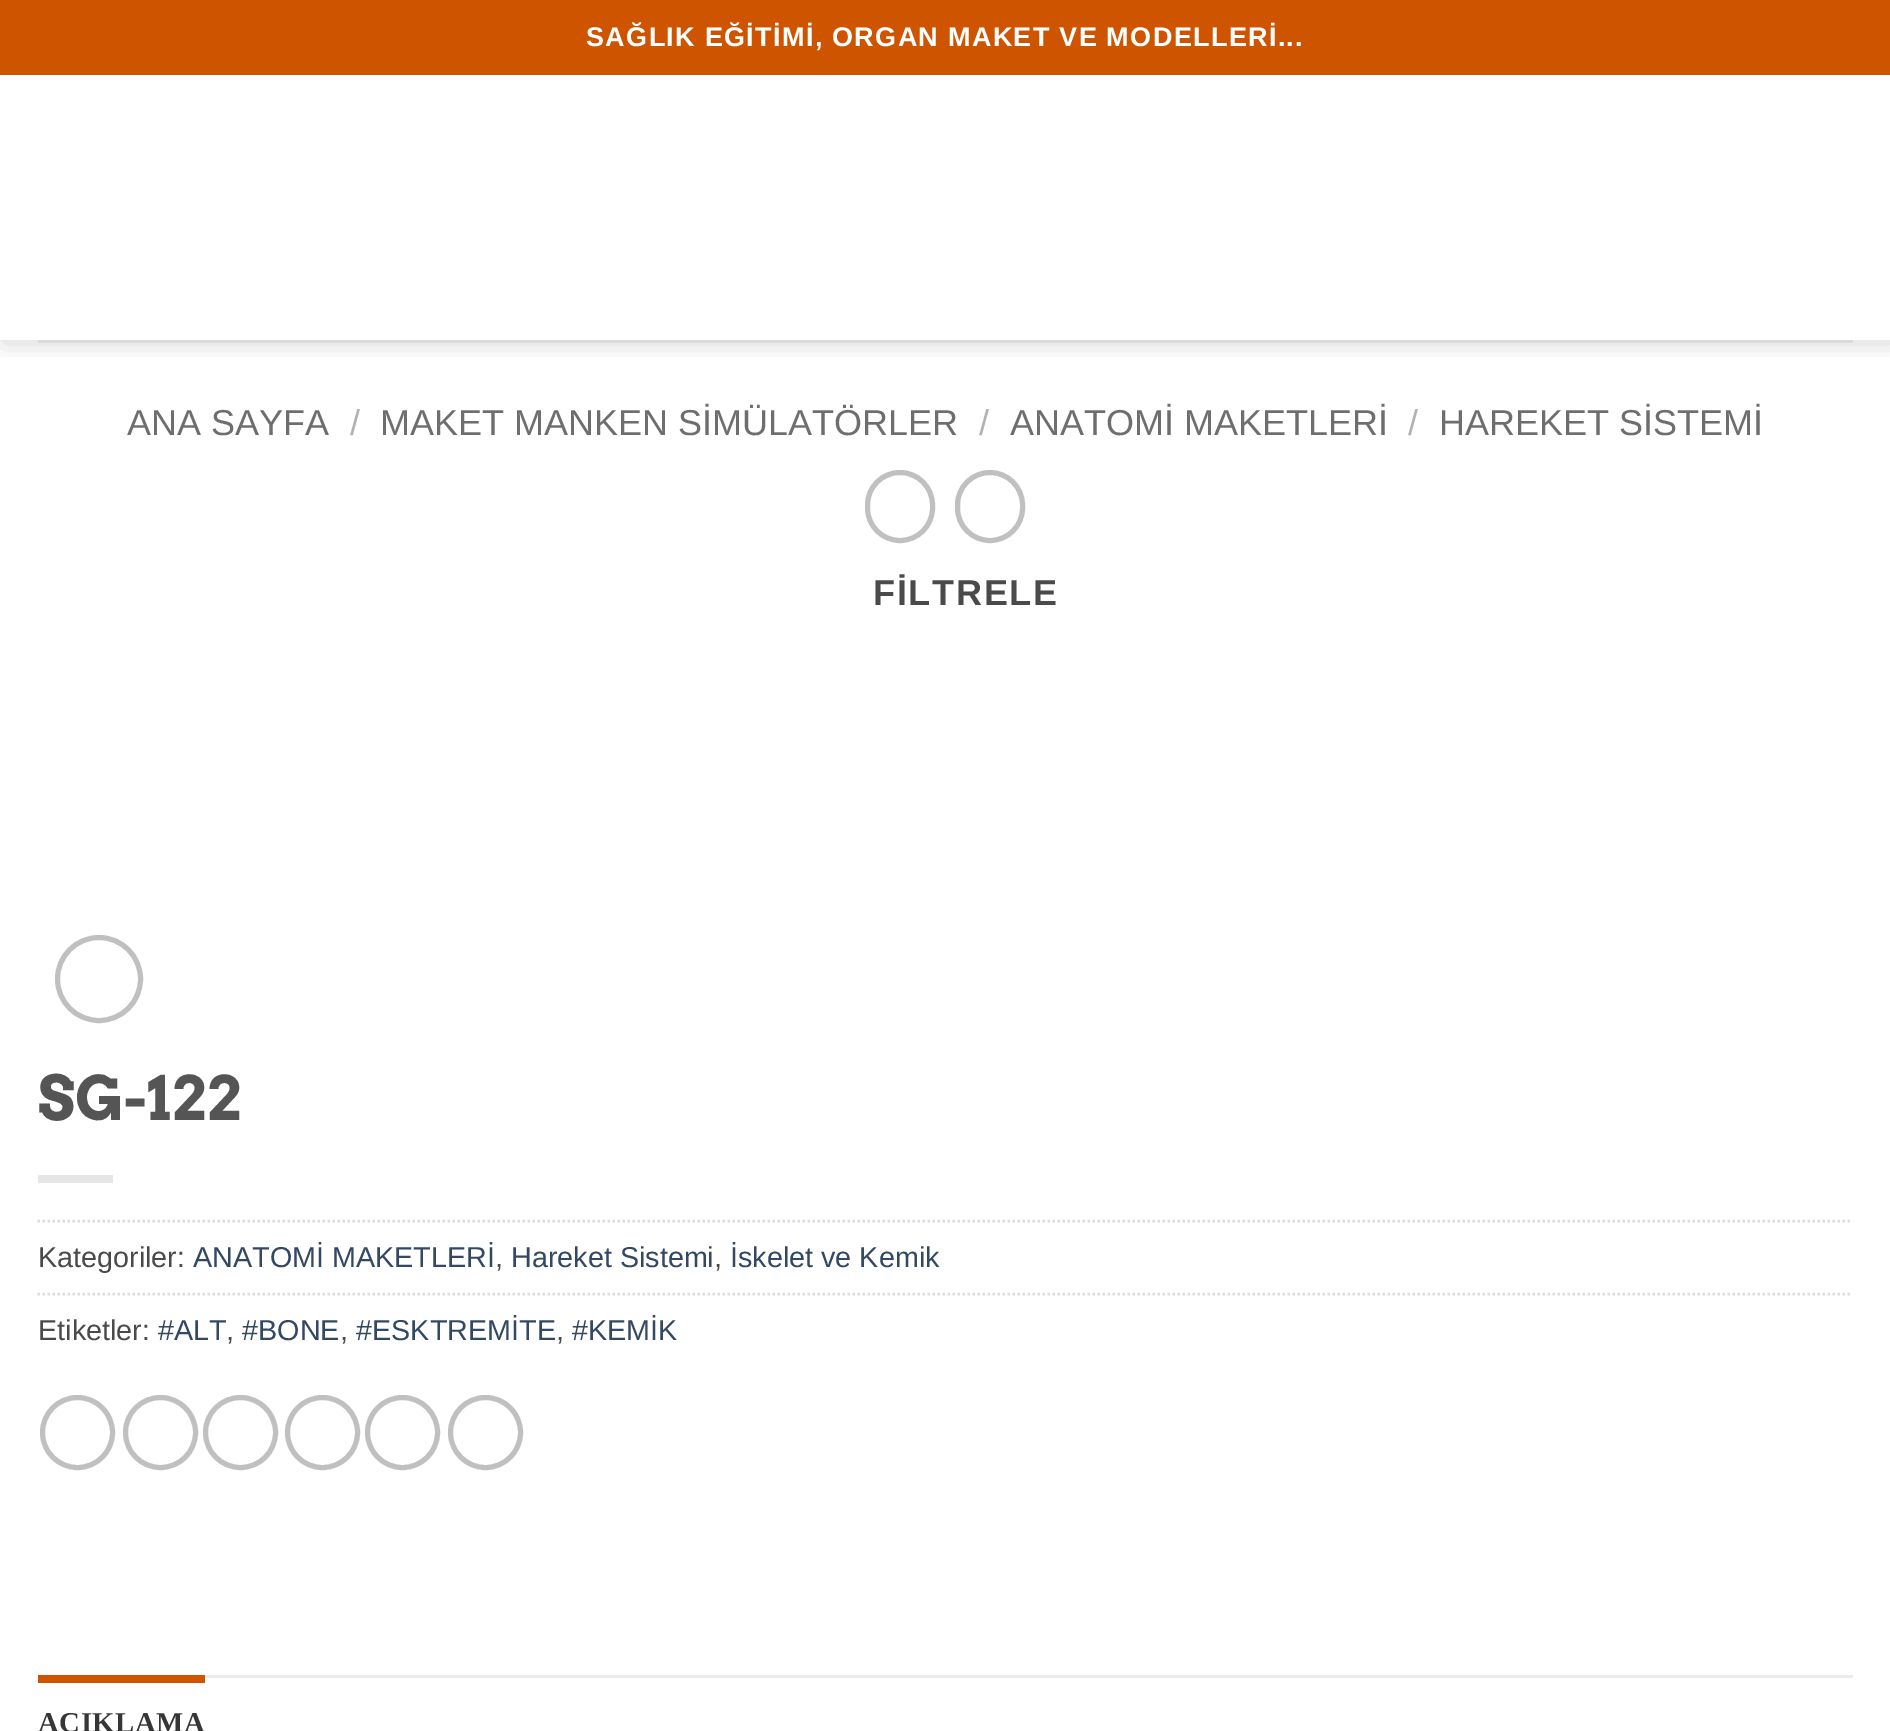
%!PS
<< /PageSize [1890 1731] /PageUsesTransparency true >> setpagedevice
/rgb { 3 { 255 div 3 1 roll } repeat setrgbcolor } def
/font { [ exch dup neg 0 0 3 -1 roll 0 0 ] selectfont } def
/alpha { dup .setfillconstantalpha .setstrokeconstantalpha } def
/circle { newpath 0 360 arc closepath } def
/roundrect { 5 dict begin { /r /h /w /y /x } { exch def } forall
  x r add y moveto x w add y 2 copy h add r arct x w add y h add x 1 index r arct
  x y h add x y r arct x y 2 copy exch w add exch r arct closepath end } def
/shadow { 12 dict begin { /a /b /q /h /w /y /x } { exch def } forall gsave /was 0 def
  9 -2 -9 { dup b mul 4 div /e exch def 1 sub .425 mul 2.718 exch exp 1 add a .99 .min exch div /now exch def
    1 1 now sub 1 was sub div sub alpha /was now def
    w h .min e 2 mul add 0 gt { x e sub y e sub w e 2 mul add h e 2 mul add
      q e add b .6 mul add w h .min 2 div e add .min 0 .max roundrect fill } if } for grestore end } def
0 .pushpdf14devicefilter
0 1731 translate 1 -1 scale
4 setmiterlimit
255 255 255 rgb
0 0 1890 1731 rectfill
gsave
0 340 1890 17 rectclip
0 0 0 rgb
3 3 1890 340 0 12.5 0.15 shadow
grestore
206 84 0 rgb
0 0 1890 75 rectfill
218 218 218 rgb
38 340 1815 3 rectfill
192 192 192 rgb
5 setlinewidth
867.5 472.5 65 68 32.5 roundrect stroke
957.5 472.5 65 68 32.5 roundrect stroke
99 979 41.5 circle stroke
230 230 230 rgb
38 1175 75 8 rectfill
221 221 221 rgb
2.5 setlinewidth
[2.5 2.5] 0 setdash
37.5 1221 moveto 1852.5 1221 lineto stroke
37.5 1294 moveto 1852.5 1294 lineto stroke
192 192 192 rgb
5 setlinewidth
[] 0 setdash
77.5 1432.5 35 circle stroke
160.5 1432.5 35 circle stroke
240.5 1432.5 35 circle stroke
322.5 1432.5 35 circle stroke
402.5 1432.5 35 circle stroke
485.5 1432.5 35 circle stroke
236 236 236 rgb
205 1675 1648 3 rectfill
206 84 0 rgb
38 1675 167 8 rectfill
/LiberationSans-Bold 27 font
255 255 255 rgb
586 46 moveto -0.25 0 32 1.35 0 (SAĞLIK EĞİTİMİ, ORGAN MAKET VE MODELLERİ...) awidthshow
/LiberationSans-Regular 36 font
110 110 110 rgb
127 435 moveto (ANA SAYFA) show
178 178 178 rgb
350 435 moveto (/) show
110 110 110 rgb
380 435 moveto (MAKET MANKEN SİMÜLATÖRLER) show
178 178 178 rgb
979 435 moveto (/) show
110 110 110 rgb
1010 435 moveto (ANATOMİ MAKETLERİ) show
178 178 178 rgb
1408 435 moveto (/) show
110 110 110 rgb
1439 435 moveto (HAREKET SİSTEMİ) show
/LiberationSans-Bold 36 font
74 74 74 rgb
873 605 moveto 1.75 0 (FİLTRELE) ashow
/Arvo-Bold 61 font
85 85 85 rgb
38 1120 moveto (SG-122) show
/LiberationSans-Regular 28.75 font
74 74 74 rgb
38 1267 moveto (Kategoriler:) show
51 72 98 rgb
193 1267 moveto (ANATOMİ MAKETLERİ) show
74 74 74 rgb
495 1267 moveto (,) show
51 72 98 rgb
511 1267 moveto (Hareket Sistemi) show
74 74 74 rgb
714 1267 moveto (,) show
51 72 98 rgb
730 1267 moveto (İskelet ve Kemik) show
74 74 74 rgb
38 1340 moveto (Etiketler:) show
51 72 98 rgb
158 1340 moveto (#ALT) show
74 74 74 rgb
226 1340 moveto (,) show
51 72 98 rgb
242 1340 moveto (#BONE) show
74 74 74 rgb
340 1340 moveto (,) show
51 72 98 rgb
356 1340 moveto (#ESKTREMİTE) show
74 74 74 rgb
556 1340 moveto (,) show
51 72 98 rgb
572 1340 moveto (#KEMİK) show
/LiberationSerif-Bold 28.75 font
54 54 54 rgb
38 1732 moveto 0.5 0 (AÇIKLAMA) ashow
.poppdf14devicefilter showpage
